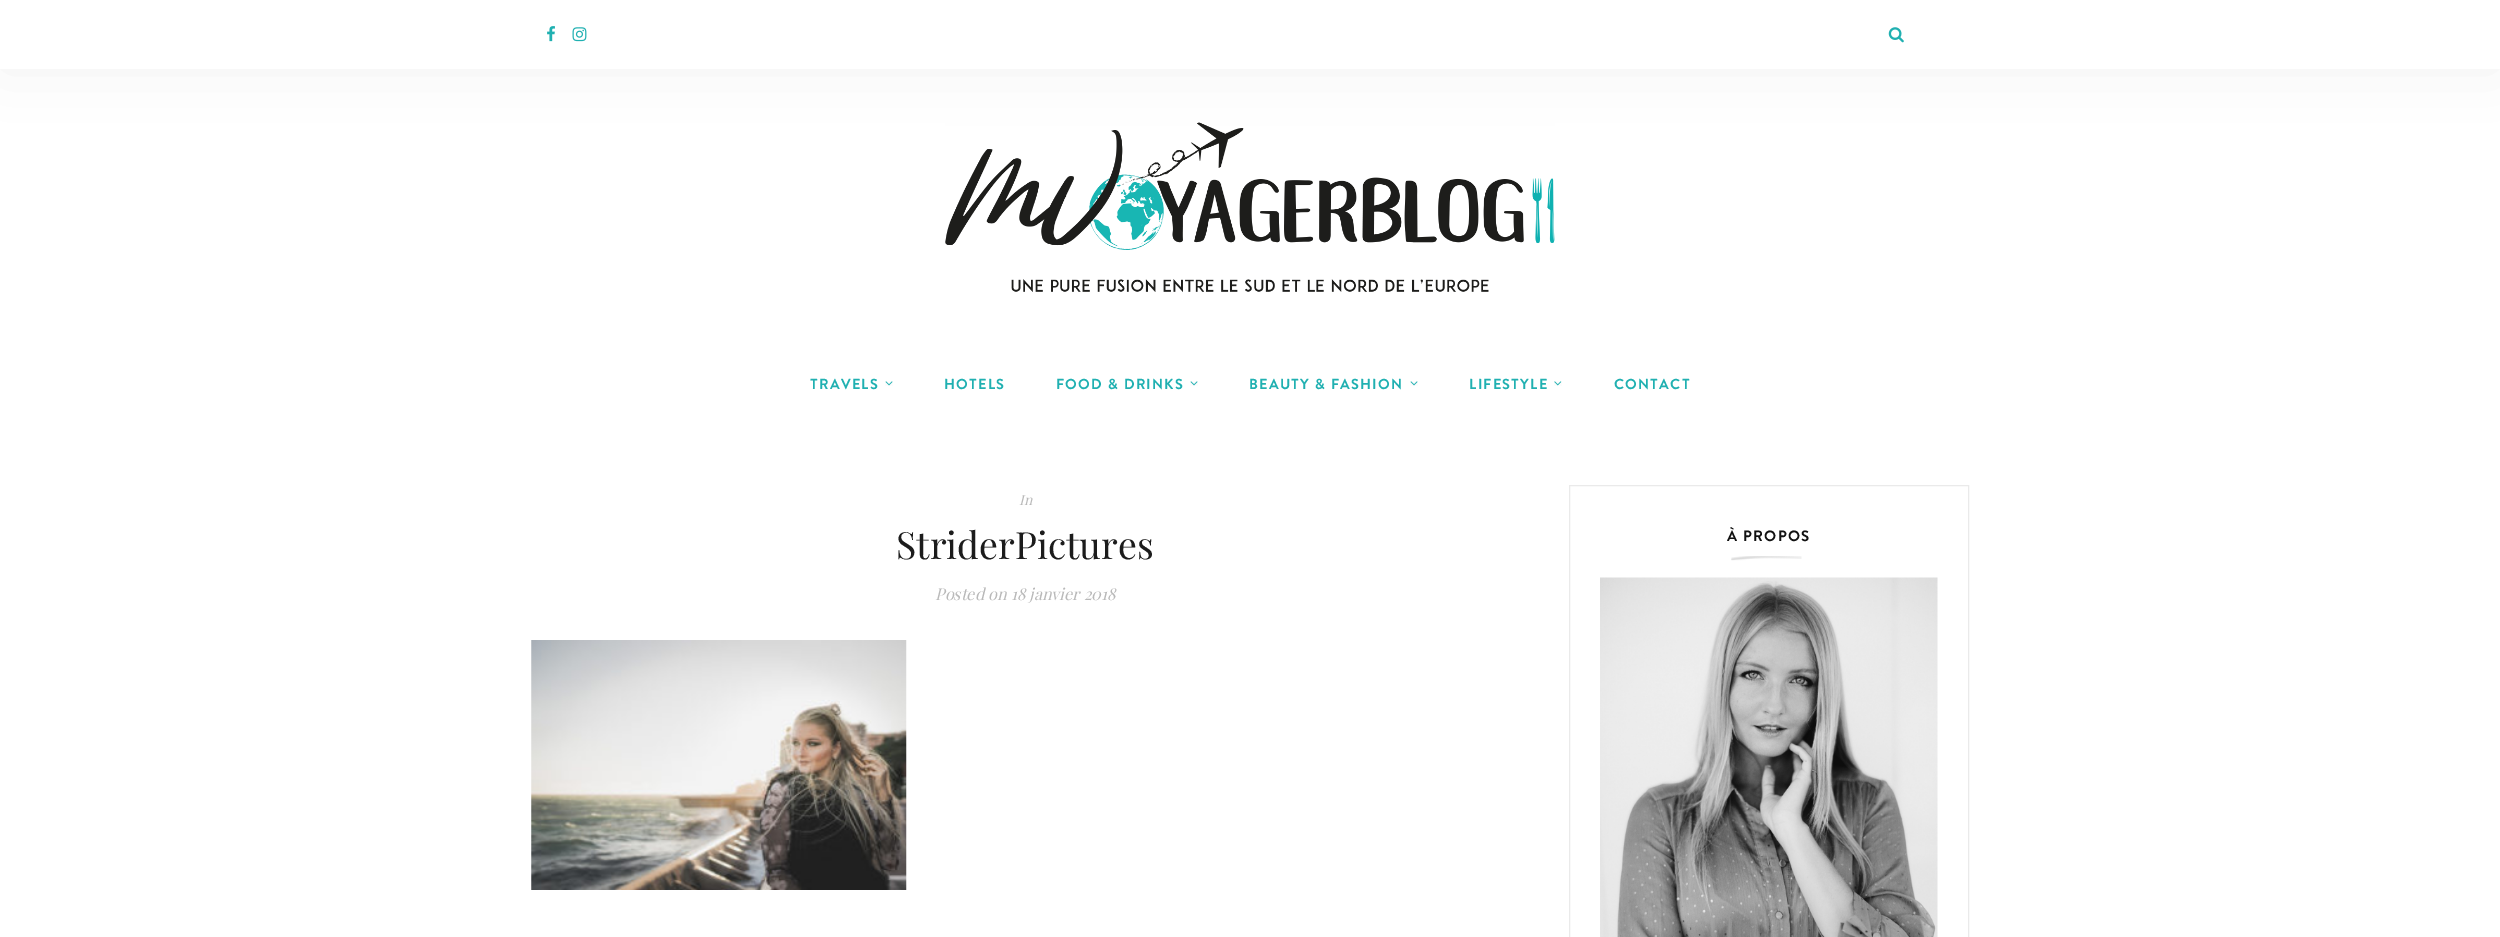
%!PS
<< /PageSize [2500 937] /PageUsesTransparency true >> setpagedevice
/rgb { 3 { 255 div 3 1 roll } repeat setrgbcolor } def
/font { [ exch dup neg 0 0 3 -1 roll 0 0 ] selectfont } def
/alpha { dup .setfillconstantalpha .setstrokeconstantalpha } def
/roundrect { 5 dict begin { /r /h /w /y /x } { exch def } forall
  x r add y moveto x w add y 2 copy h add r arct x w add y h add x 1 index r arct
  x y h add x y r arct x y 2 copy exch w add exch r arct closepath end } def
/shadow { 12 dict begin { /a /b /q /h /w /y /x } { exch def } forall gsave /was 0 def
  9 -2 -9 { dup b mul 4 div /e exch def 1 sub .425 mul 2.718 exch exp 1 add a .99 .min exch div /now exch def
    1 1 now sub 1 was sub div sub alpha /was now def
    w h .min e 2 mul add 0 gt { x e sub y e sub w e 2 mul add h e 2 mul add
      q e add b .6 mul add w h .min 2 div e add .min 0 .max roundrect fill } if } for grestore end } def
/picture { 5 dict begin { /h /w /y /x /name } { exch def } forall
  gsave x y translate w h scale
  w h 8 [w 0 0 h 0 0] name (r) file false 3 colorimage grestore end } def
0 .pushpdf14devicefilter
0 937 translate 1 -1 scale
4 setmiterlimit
255 255 255 rgb
0 0 2500 937 rectfill
0 0 0 rgb
0 0 2500 69 0 31 0.06 shadow
255 255 255 rgb
0 0 2500 69 rectfill
(img/1.rgb) 547 26 8 16 picture
(img/2.rgb) 572 27 15 15 picture
(img/3.rgb) 1888 27 16 16 picture
(img/4.rgb) 945 122 610 170 picture
(img/5.rgb) 885 381 8 5 picture
(img/5.rgb) 1190 381 8 5 picture
(img/5.rgb) 1410 381 8 5 picture
(img/6.rgb) 1554 381 8 5 picture
(img/7.rgb) 531 640 376 250 picture
234 234 234 rgb
1569.5 485.5 399 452 rectstroke
(img/8.rgb) 1731 556 71 5 picture
(img/9.rgb) 1600 577 338 360 picture
/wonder-Regular 14.5 font
32 176 177 rgb
810 389 moveto 1.25 0 (TRAVELS) ashow
944 389 moveto 1.25 0 (HOTELS) ashow
1056 389 moveto 1.25 0 (FOOD & DRINKS) ashow
1249 389 moveto 1.25 0 (BEAUTY & FASHION) ashow
1469 389 moveto 1.25 0 (LIFESTYLE) ashow
1614 389 moveto 1.25 0 (CONTACT) ashow
/PlayfairDisplay-Italic 14 font
185 185 185 rgb
1019 505 moveto (In) show
/PlayfairDisplay-Regular 37.5 font
28 28 28 rgb
896 559 moveto (StriderPictures) show
/PlayfairDisplay-Italic 16.25 font
185 185 185 rgb
935 600 moveto (Posted on 18 janvier 2018) show
/wonder-Regular 15 font
17 17 17 rgb
1727 541 moveto 1.25 0 (À PROPOS) ashow
.poppdf14devicefilter showpage
